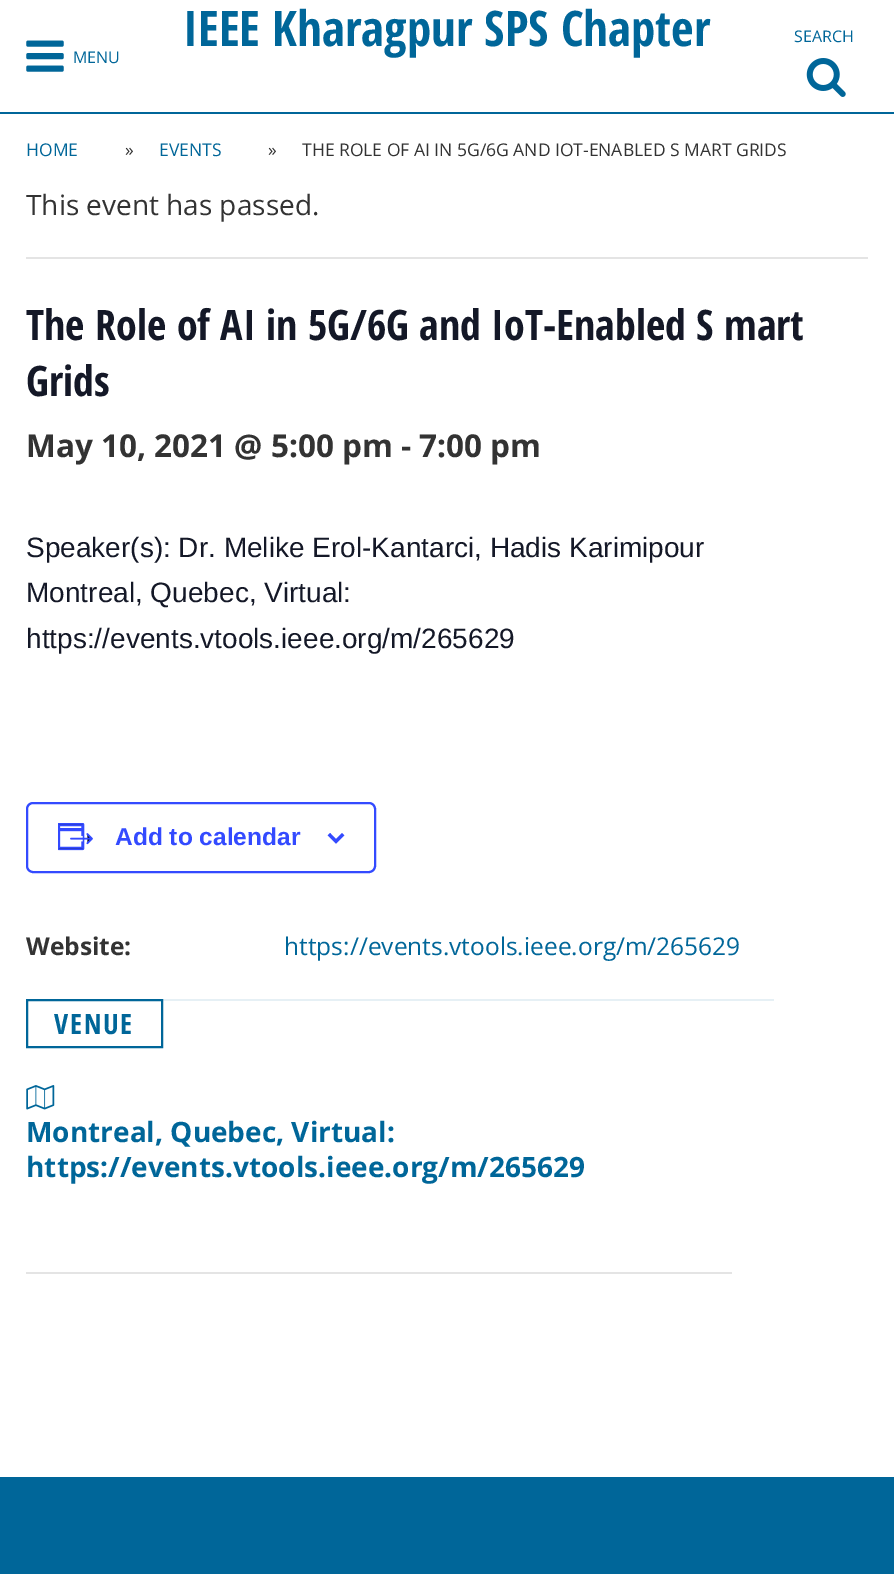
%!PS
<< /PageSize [894 1574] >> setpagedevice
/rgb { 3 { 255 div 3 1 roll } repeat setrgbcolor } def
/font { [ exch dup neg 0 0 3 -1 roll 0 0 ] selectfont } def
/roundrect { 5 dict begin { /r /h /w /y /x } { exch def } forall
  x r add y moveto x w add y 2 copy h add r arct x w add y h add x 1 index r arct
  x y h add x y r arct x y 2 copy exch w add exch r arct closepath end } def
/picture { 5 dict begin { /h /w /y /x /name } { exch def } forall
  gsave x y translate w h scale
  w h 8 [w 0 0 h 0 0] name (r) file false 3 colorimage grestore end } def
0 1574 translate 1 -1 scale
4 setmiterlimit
255 255 255 rgb
0 0 894 1574 rectfill
0 102 153 rgb
0 112 894 2 rectfill
(img/1.rgb) 806 58 40 39 picture
(img/2.rgb) 26 40 38 32 picture
228 228 228 rgb
26 257 842 2 rectfill
51 74 255 rgb
2 setlinewidth
27 803 348 69 6 roundrect stroke
(img/3.rgb) 58 823 35 28 picture
(img/4.rgb) 327 833 18 11 picture
230 240 245 rgb
163 999 611 2 rectfill
0 102 153 rgb
27 1000 135 47 rectstroke
(img/5.rgb) 26 1085 29 25 picture
228 228 228 rgb
26 1272 706 2 rectfill
0 102 153 rgb
0 1477 894 97 rectfill
/OpenSansCondensed-Bold 49 font
183 46 moveto (IEEE Kharagpur SPS Chapter) show
/OpenSans-Regular 16 font
794 42 moveto (SEARCH) show
73 63 moveto (MENU) show
/OpenSans-Regular 17.5 font
26 156 moveto (HOME) show
51 51 51 rgb
125 156 moveto (») show
0 102 153 rgb
159 156 moveto (EVENTS) show
51 51 51 rgb
268 156 moveto (») show
302 156 moveto (THE ROLE OF AI IN 5G/6G AND IOT-ENABLED S MART GRIDS) show
/OpenSans-Regular 28 font
26 215 moveto (This event has passed.) show
/OpenSansCondensed-Bold 42 font
20 24 39 rgb
26 340 moveto (The Role of AI in 5G/6G and IoT-Enabled S mart) show
26 396 moveto (Grids) show
/OpenSans-Bold 31.5 font
51 51 51 rgb
26 457 moveto (May 10, 2021 @ 5:00 pm - 7:00 pm) show
/LiberationSans-Regular 28 font
20 24 39 rgb
[
  [(Speaker\(s\): Dr. Melike Erol-Kantarci, Hadis Karimipour) 26 557]
  [(Montreal, Quebec, Virtual:) 26 602]
  [(https://events.vtools.ieee.org/m/265629) 26 648]
] { aload pop moveto show } forall
/LiberationSans-Bold 24.5 font
51 74 255 rgb
115 845 moveto (Add to calendar) show
/OpenSans-Bold 24.5 font
51 51 51 rgb
26 955 moveto (Website:) show
/OpenSans-Regular 24.5 font
0 102 153 rgb
284 955 moveto (https://events.vtools.ieee.org/m/265629) show
/OpenSansCondensed-Bold 28 font
54 1034 moveto 1.75 0 (VENUE) ashow
/OpenSans-Bold 28 font
26 1142 moveto (Montreal, Quebec, Virtual:) show
26 1177 moveto (https://events.vtools.ieee.org/m/265629) show
showpage
